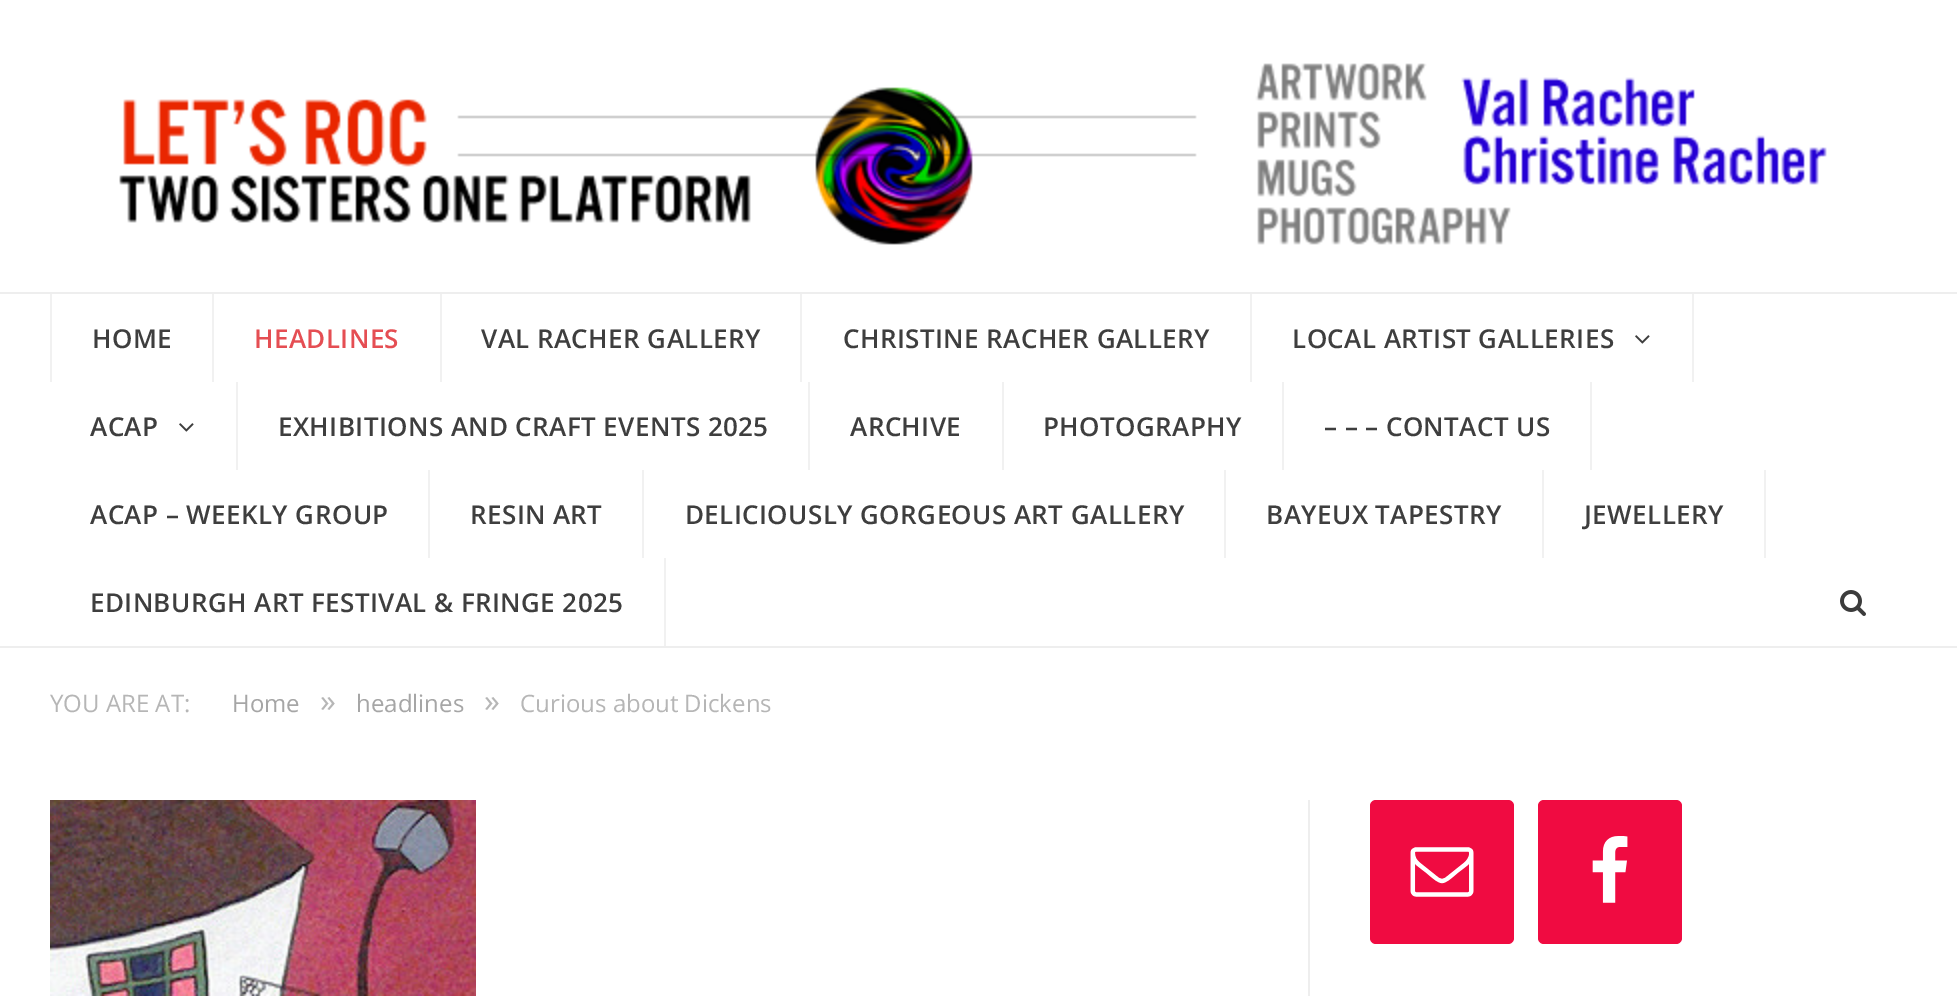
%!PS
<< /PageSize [1957 996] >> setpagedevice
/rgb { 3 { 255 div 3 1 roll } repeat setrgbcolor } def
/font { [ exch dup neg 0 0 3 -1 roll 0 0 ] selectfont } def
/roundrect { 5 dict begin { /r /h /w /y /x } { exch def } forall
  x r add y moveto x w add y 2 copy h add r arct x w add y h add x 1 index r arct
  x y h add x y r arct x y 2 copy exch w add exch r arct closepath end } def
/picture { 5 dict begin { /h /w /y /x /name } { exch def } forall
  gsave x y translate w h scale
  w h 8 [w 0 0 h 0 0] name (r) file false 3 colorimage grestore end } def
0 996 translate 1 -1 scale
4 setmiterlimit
255 255 255 rgb
0 0 1957 996 rectfill
(img/1.rgb) 119 63 1708 182 picture
[
  [0 292 1957 2 238 238 238]
  [0 646 1957 2 238 238 238]
  [212 294 2 88 241 241 241]
  [50 294 2 88 241 241 241]
  [440 294 2 88 241 241 241]
  [800 294 2 88 241 241 241]
  [1250 294 2 88 241 241 241]
  [1692 294 2 88 241 241 241]
] { aload pop rgb rectfill } forall
(img/2.rgb) 1635 335 15 9 picture
236 382 2 88 rectfill
(img/2.rgb) 179 423 15 9 picture
[
  [808 382 2 88 241 241 241]
  [1002 382 2 88 241 241 241]
  [1282 382 2 88 241 241 241]
  [1590 382 2 88 241 241 241]
  [428 470 2 88 241 241 241]
  [642 470 2 88 241 241 241]
  [1224 470 2 88 241 241 241]
  [1542 470 2 88 241 241 241]
  [1764 470 2 88 241 241 241]
  [664 558 2 88 241 241 241]
] { aload pop rgb rectfill } forall
(img/3.rgb) 1840 590 26 26 picture
(img/4.rgb) 50 800 426 196 picture
238 238 238 rgb
1308 800 2 196 rectfill
240 11 65 rgb
1370 800 144 144 6 roundrect fill
(img/5.rgb) 1410 847 64 50 picture
1538 800 144 144 6 roundrect fill
(img/6.rgb) 1592 836 36 67 picture
/OpenSans-SemiBold 26 font
62 62 62 rgb
92 348 moveto 0.4 0 (HOME) ashow
229 78 83 rgb
254 348 moveto 0.4 0 (HEADLINES) ashow
62 62 62 rgb
481 348 moveto 0.4 0 (VAL RACHER GALLERY) ashow
843 348 moveto 0.4 0 (CHRISTINE RACHER GALLERY) ashow
1292 348 moveto 0.4 0 (LOCAL ARTIST GALLERIES) ashow
90 436 moveto 0.4 0 (ACAP) ashow
278 436 moveto 0.4 0 (EXHIBITIONS AND CRAFT EVENTS 2025) ashow
850 436 moveto 0.4 0 (ARCHIVE) ashow
1043 436 moveto 0.4 0 (PHOTOGRAPHY) ashow
1324 436 moveto 0.4 0 (– – – CONTACT US) ashow
90 524 moveto 0.4 0 (ACAP – WEEKLY GROUP) ashow
470 524 moveto 0.4 0 (RESIN ART) ashow
685 524 moveto 0.4 0 (DELICIOUSLY GORGEOUS ART GALLERY) ashow
1266 524 moveto 0.4 0 (BAYEUX TAPESTRY) ashow
1584 524 moveto 0.4 0 (JEWELLERY) ashow
90 612 moveto 0.4 0 (EDINBURGH ART FESTIVAL & FRINGE 2025) ashow
/OpenSans-Regular 24 font
182 182 182 rgb
50 712 moveto (YOU ARE AT:) show
166 166 166 rgb
232 712 moveto (Home) show
/OpenSans-Regular 32 font
182 182 182 rgb
320 712 moveto (») show
/OpenSans-Regular 24 font
166 166 166 rgb
356 712 moveto (headlines) show
/OpenSans-Regular 32 font
182 182 182 rgb
484 712 moveto (») show
/OpenSans-Regular 24 font
520 712 moveto (Curious about Dickens) show
showpage
